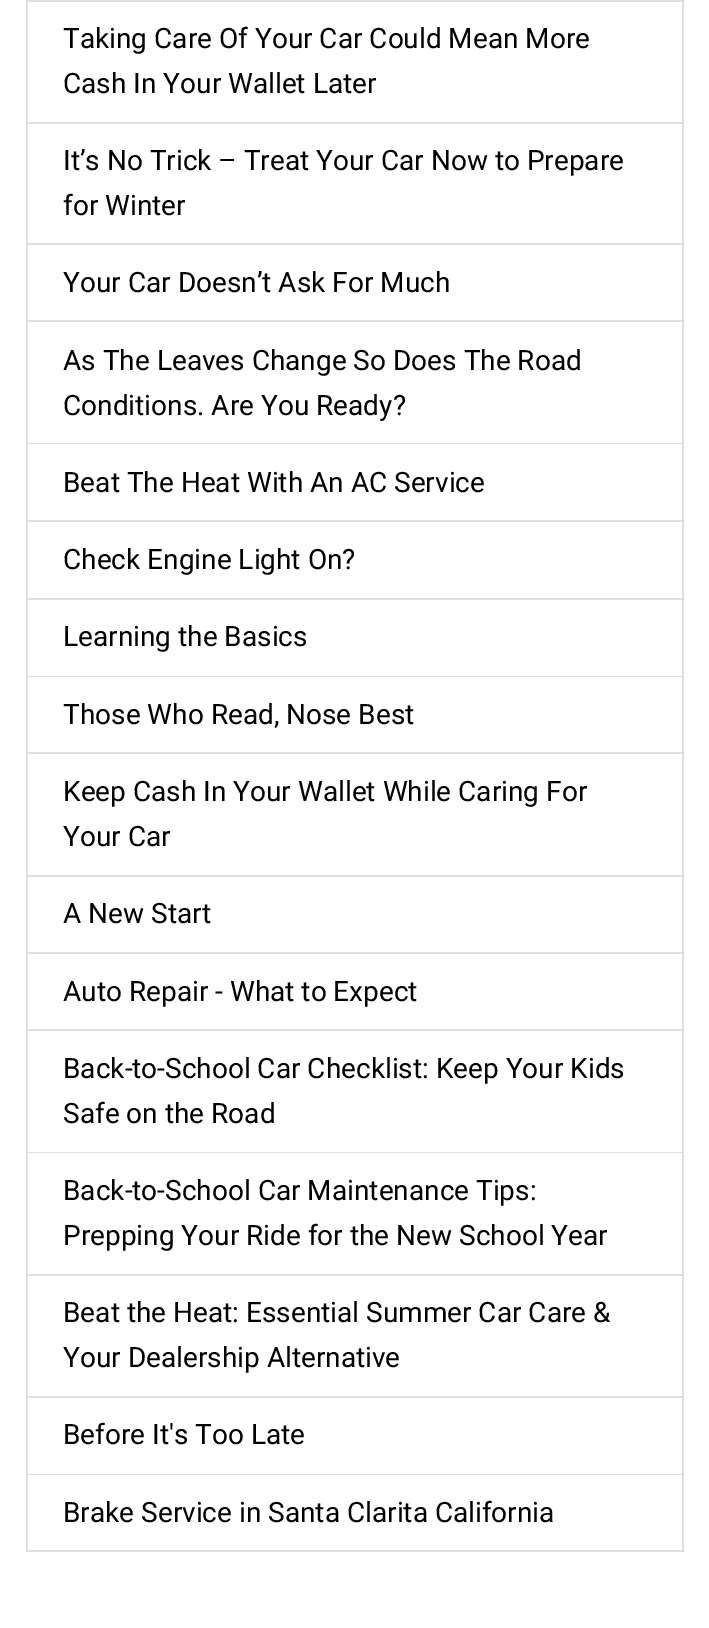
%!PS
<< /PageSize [709 1628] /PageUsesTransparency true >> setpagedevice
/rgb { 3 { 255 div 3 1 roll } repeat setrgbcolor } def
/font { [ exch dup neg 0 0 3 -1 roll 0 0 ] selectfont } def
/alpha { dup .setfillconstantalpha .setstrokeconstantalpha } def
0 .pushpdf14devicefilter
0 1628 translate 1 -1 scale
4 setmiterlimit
255 255 255 rgb
0 0 709 1628 rectfill
223 223 223 rgb
684 -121 moveto 684 2 lineto 682 0 lineto 682 -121 lineto closepath fill
0.12 alpha
0 0 0 rgb
684 2 moveto 26 2 lineto 28 0 lineto 682 0 lineto closepath fill
26 2 moveto 26 -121 lineto 28 -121 lineto 28 0 lineto closepath fill
1 alpha
223 223 223 rgb
684 2 moveto 684 124 lineto 682 122 lineto 682 2 lineto closepath fill
0.12 alpha
0 0 0 rgb
684 124 moveto 26 124 lineto 28 122 lineto 682 122 lineto closepath fill
26 124 moveto 26 2 lineto 28 2 lineto 28 122 lineto closepath fill
1 alpha
223 223 223 rgb
684 124 moveto 684 245 lineto 682 243 lineto 682 124 lineto closepath fill
0.12 alpha
0 0 0 rgb
684 245 moveto 26 245 lineto 28 243 lineto 682 243 lineto closepath fill
26 245 moveto 26 124 lineto 28 124 lineto 28 243 lineto closepath fill
1 alpha
223 223 223 rgb
684 245 moveto 684 322 lineto 682 320 lineto 682 245 lineto closepath fill
0.12 alpha
0 0 0 rgb
684 322 moveto 26 322 lineto 28 320 lineto 682 320 lineto closepath fill
26 322 moveto 26 245 lineto 28 245 lineto 28 320 lineto closepath fill
1 alpha
223 223 223 rgb
684 322 moveto 684 444 lineto 682 443 lineto 682 322 lineto closepath fill
0.12 alpha
0 0 0 rgb
684 444 moveto 26 444 lineto 28 443 lineto 682 443 lineto closepath fill
26 444 moveto 26 322 lineto 28 322 lineto 28 443 lineto closepath fill
1 alpha
223 223 223 rgb
684 444 moveto 684 522 lineto 682 520 lineto 682 444 lineto closepath fill
0.12 alpha
0 0 0 rgb
684 522 moveto 26 522 lineto 28 520 lineto 682 520 lineto closepath fill
26 522 moveto 26 444 lineto 28 444 lineto 28 520 lineto closepath fill
1 alpha
223 223 223 rgb
684 522 moveto 684 600 lineto 682 598 lineto 682 522 lineto closepath fill
0.12 alpha
0 0 0 rgb
684 600 moveto 26 600 lineto 28 598 lineto 682 598 lineto closepath fill
26 600 moveto 26 522 lineto 28 522 lineto 28 598 lineto closepath fill
1 alpha
223 223 223 rgb
684 600 moveto 684 677 lineto 682 676 lineto 682 600 lineto closepath fill
0.12 alpha
0 0 0 rgb
684 677 moveto 26 677 lineto 28 676 lineto 682 676 lineto closepath fill
26 677 moveto 26 600 lineto 28 600 lineto 28 676 lineto closepath fill
1 alpha
223 223 223 rgb
684 677 moveto 684 754 lineto 682 752 lineto 682 677 lineto closepath fill
0.12 alpha
0 0 0 rgb
684 754 moveto 26 754 lineto 28 752 lineto 682 752 lineto closepath fill
26 754 moveto 26 677 lineto 28 677 lineto 28 752 lineto closepath fill
1 alpha
223 223 223 rgb
684 754 moveto 684 877 lineto 682 875 lineto 682 754 lineto closepath fill
0.12 alpha
0 0 0 rgb
684 877 moveto 26 877 lineto 28 875 lineto 682 875 lineto closepath fill
26 877 moveto 26 754 lineto 28 754 lineto 28 875 lineto closepath fill
1 alpha
223 223 223 rgb
684 877 moveto 684 954 lineto 682 952 lineto 682 877 lineto closepath fill
0.12 alpha
0 0 0 rgb
684 954 moveto 26 954 lineto 28 952 lineto 682 952 lineto closepath fill
26 954 moveto 26 877 lineto 28 877 lineto 28 952 lineto closepath fill
1 alpha
223 223 223 rgb
684 954 moveto 684 1031 lineto 682 1029 lineto 682 954 lineto closepath fill
0.12 alpha
0 0 0 rgb
684 1031 moveto 26 1031 lineto 28 1029 lineto 682 1029 lineto closepath fill
26 1031 moveto 26 954 lineto 28 954 lineto 28 1029 lineto closepath fill
1 alpha
223 223 223 rgb
684 1031 moveto 684 1153 lineto 682 1152 lineto 682 1031 lineto closepath fill
0.12 alpha
0 0 0 rgb
684 1153 moveto 26 1153 lineto 28 1152 lineto 682 1152 lineto closepath fill
26 1153 moveto 26 1031 lineto 28 1031 lineto 28 1152 lineto closepath fill
1 alpha
223 223 223 rgb
684 1153 moveto 684 1276 lineto 682 1274 lineto 682 1153 lineto closepath fill
0.12 alpha
0 0 0 rgb
684 1276 moveto 26 1276 lineto 28 1274 lineto 682 1274 lineto closepath fill
26 1276 moveto 26 1153 lineto 28 1153 lineto 28 1274 lineto closepath fill
1 alpha
223 223 223 rgb
684 1276 moveto 684 1398 lineto 682 1396 lineto 682 1276 lineto closepath fill
0.12 alpha
0 0 0 rgb
684 1398 moveto 26 1398 lineto 28 1396 lineto 682 1396 lineto closepath fill
26 1398 moveto 26 1276 lineto 28 1276 lineto 28 1396 lineto closepath fill
1 alpha
223 223 223 rgb
684 1398 moveto 684 1475 lineto 682 1474 lineto 682 1398 lineto closepath fill
0.12 alpha
0 0 0 rgb
684 1475 moveto 26 1475 lineto 28 1474 lineto 682 1474 lineto closepath fill
26 1475 moveto 26 1398 lineto 28 1398 lineto 28 1474 lineto closepath fill
1 alpha
223 223 223 rgb
684 1475 moveto 684 1552 lineto 682 1550 lineto 682 1475 lineto closepath fill
0.12 alpha
0 0 0 rgb
684 1552 moveto 26 1552 lineto 28 1550 lineto 682 1550 lineto closepath fill
26 1552 moveto 26 1475 lineto 28 1475 lineto 28 1550 lineto closepath fill
/Roboto-Regular 28 font
1 alpha
[
  [(Taking Care Of Your Car Could Mean More) 63 48]
  [(Cash In Your Wallet Later) 63 93]
  [(It’s No Trick – Treat Your Car Now to Prepare) 63 170]
  [(for Winter) 63 215]
  [(Your Car Doesn’t Ask For Much) 63 292]
  [(As The Leaves Change So Does The Road) 63 370]
  [(Conditions. Are You Ready?) 63 415]
  [(Beat The Heat With An AC Service) 63 492]
  [(Check Engine Light On?) 63 569]
  [(Learning the Basics) 63 646]
  [(Those Who Read, Nose Best) 63 724]
  [(Keep Cash In Your Wallet While Caring For) 63 801]
  [(Your Car) 63 846]
  [(A New Start) 63 923]
  [(Auto Repair - What to Expect) 63 1001]
  [(Back‑to‑School Car Checklist: Keep Your Kids) 63 1078]
  [(Safe on the Road) 63 1123]
  [(Back-to-School Car Maintenance Tips:) 63 1200]
  [(Prepping Your Ride for the New School Year) 63 1245]
  [(Beat the Heat: Essential Summer Car Care &) 63 1322]
  [(Your Dealership Alternative) 63 1367]
  [(Before It's Too Late) 63 1444]
  [(Brake Service in Santa Clarita California) 63 1522]
] { aload pop moveto show } forall
.poppdf14devicefilter showpage
